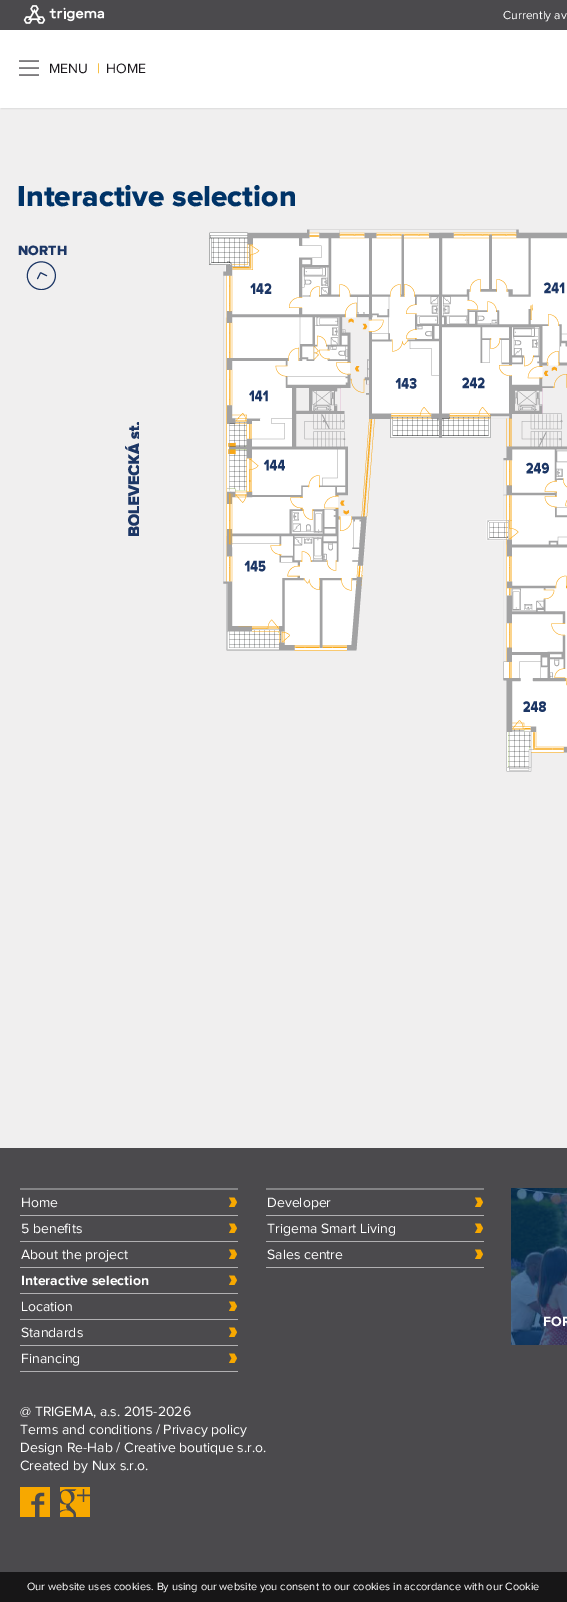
%!PS
<< /PageSize [567 1602] /PageUsesTransparency true >> setpagedevice
/rgb { 3 { 255 div 3 1 roll } repeat setrgbcolor } def
/font { [ exch dup neg 0 0 3 -1 roll 0 0 ] selectfont } def
/alpha { dup .setfillconstantalpha .setstrokeconstantalpha } def
/roundrect { 5 dict begin { /r /h /w /y /x } { exch def } forall
  x r add y moveto x w add y 2 copy h add r arct x w add y h add x 1 index r arct
  x y h add x y r arct x y 2 copy exch w add exch r arct closepath end } def
/shadow { 12 dict begin { /a /b /q /h /w /y /x } { exch def } forall gsave /was 0 def
  9 -2 -9 { dup b mul 4 div /e exch def 1 sub .425 mul 2.718 exch exp 1 add a .99 .min exch div /now exch def
    1 1 now sub 1 was sub div sub alpha /was now def
    w h .min e 2 mul add 0 gt { x e sub y e sub w e 2 mul add h e 2 mul add
      q e add b .6 mul add w h .min 2 div e add .min 0 .max roundrect fill } if } for grestore end } def
/picture { 5 dict begin { /h /w /y /x /name } { exch def } forall
  gsave x y translate w h scale
  w h 8 [w 0 0 h 0 0] name (r) file false 3 colorimage grestore end } def
0 .pushpdf14devicefilter
0 1602 translate 1 -1 scale
4 setmiterlimit
240 239 239 rgb
0 0 567 1602 rectfill
222 222 222 rgb
1 31 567 78 0 0.5 1 shadow
75 74 77 rgb
0 0 567 30 rectfill
(img/1.rgb) 23 5 82 19 picture
255 255 255 rgb
0 30 567 78 rectfill
(img/2.rgb) 19 60 20 16 picture
(img/3.rgb) 209 229 358 543 picture
(img/4.rgb) 209 232 358 539 picture
(img/5.rgb) 26 261 30 29 picture
(img/6.rgb) 125 422 14 114 picture
75 74 77 rgb
0 1148 567 424 rectfill
131 131 133 rgb
20 1188 218 2 rectfill
(img/7.rgb) 229 1197 8 10 picture
177 176 178 rgb
20 1215 218 1 rectfill
(img/7.rgb) 229 1223 8 10 picture
20 1241 218 1 rectfill
(img/7.rgb) 229 1249 8 10 picture
20 1267 218 1 rectfill
(img/7.rgb) 229 1275 8 10 picture
20 1293 218 1 rectfill
(img/7.rgb) 229 1301 8 10 picture
20 1319 218 1 rectfill
(img/7.rgb) 229 1327 8 10 picture
20 1345 218 1 rectfill
(img/7.rgb) 229 1353 8 10 picture
20 1371 218 1 rectfill
131 131 133 rgb
266 1188 218 2 rectfill
(img/7.rgb) 475 1197 8 10 picture
177 176 178 rgb
266 1215 218 1 rectfill
(img/7.rgb) 475 1223 8 10 picture
266 1241 218 1 rectfill
(img/7.rgb) 475 1249 8 10 picture
266 1267 218 1 rectfill
(img/8.rgb) 511 1188 56 157 picture
(img/9.rgb) 20 1487 30 30 picture
(img/10.rgb) 60 1487 30 30 picture
23 22 23 rgb
0 1572 567 30 rectfill
/ProximaNova-Regular 12 font
255 255 255 rgb
503 19 moveto (Currently av) show
/ProximaNova-Regular 14 font
26 23 27 rgb
49 73 moveto (MENU) show
246 168 0 rgb
97 73 moveto (|) show
26 23 27 rgb
106 73 moveto (HOME) show
/ProximaNova-ExtraBold 30 font
0 51 103 rgb
17 206 moveto (Interactive selection) show
/ProximaNova-ExtraBold 14 font
28 54 101 rgb
18 255 moveto (NORTH) show
/ProximaNova-Regular 14 font
255 255 255 rgb
[
  [(Home) 21 1207]
  [(5 benefits) 21 1233]
  [(About the project) 21 1259]
] { aload pop moveto show } forall
/ProximaNova-Bold 14 font
21 1285 moveto (Interactive selection) show
/ProximaNova-Regular 14 font
[
  [(Location) 21 1311]
  [(Standards) 21 1337]
  [(Financing) 21 1363]
  [(Developer) 267 1207]
  [(Trigema Smart Living) 267 1233]
  [(Sales centre) 267 1259]
] { aload pop moveto show } forall
/ProximaNova-Bold 14 font
543 1326 moveto (FOR) show
/ProximaNova-Regular 14 font
[
  [(@ TRIGEMA, a.s. 2015-2026) 20 1416]
  [(Terms and conditions / Privacy policy) 20 1434]
  [(Design Re-Hab / Creative boutique s.r.o.) 20 1452]
  [(Created by Nux s.r.o.) 20 1470]
] { aload pop moveto show } forall
/ProximaNova-Regular 11 font
27 1590 moveto (Our website uses cookies. By using our website you consent to our cookies in accordance with our Cookie) show
.poppdf14devicefilter showpage
